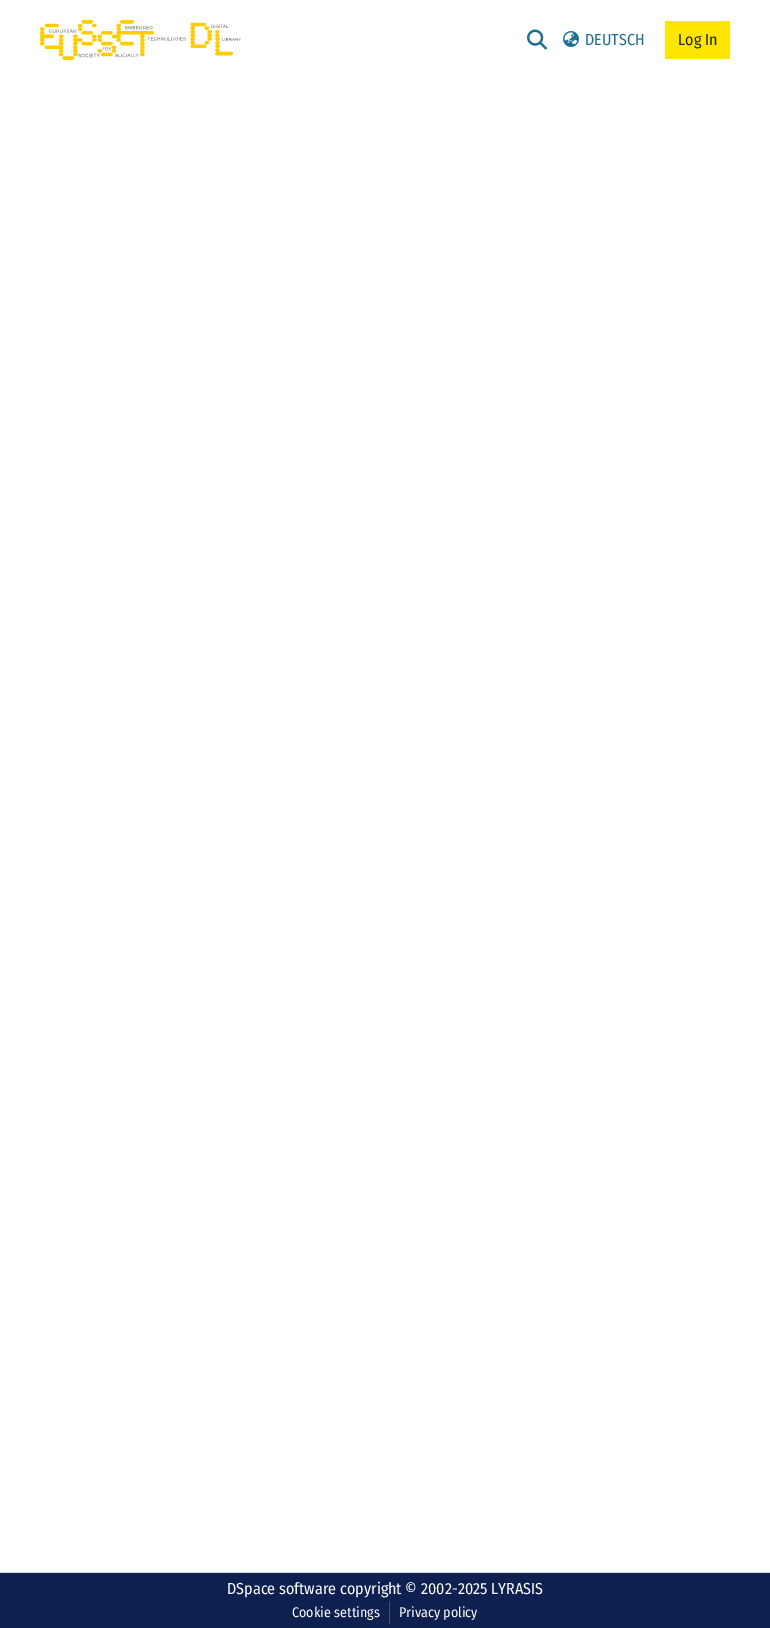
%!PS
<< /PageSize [770 1628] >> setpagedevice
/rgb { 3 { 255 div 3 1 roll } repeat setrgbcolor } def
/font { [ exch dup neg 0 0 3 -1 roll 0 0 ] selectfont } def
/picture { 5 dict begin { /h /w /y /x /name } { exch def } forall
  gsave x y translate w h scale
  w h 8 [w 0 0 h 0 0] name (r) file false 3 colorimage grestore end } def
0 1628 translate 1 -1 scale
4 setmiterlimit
255 255 255 rgb
0 0 770 1628 rectfill
(img/1.rgb) 40 20 201 40 picture
(img/2.rgb) 527 29 20 21 picture
(img/3.rgb) 563 31 16 16 picture
[
  [665 21 65 38 255 230 0]
  [0 1573 770 55 14 32 80]
  [0 1572 770 1 206 212 218]
  [389 1601 1 23 73 80 87]
] { aload pop rgb rectfill } forall
/FiraSansCondensed-Regular 16 font
30 111 144 rgb
585 45 moveto (DEUTSCH) show
33 37 41 rgb
678 45 moveto (Log In) show
255 255 255 rgb
227 1594 moveto (DSpace software copyright © 2002-2025 LYRASIS) show
/FiraSansCondensed-Regular 14 font
292 1617 moveto (Cookie settings) show
399 1617 moveto (Privacy policy) show
showpage
